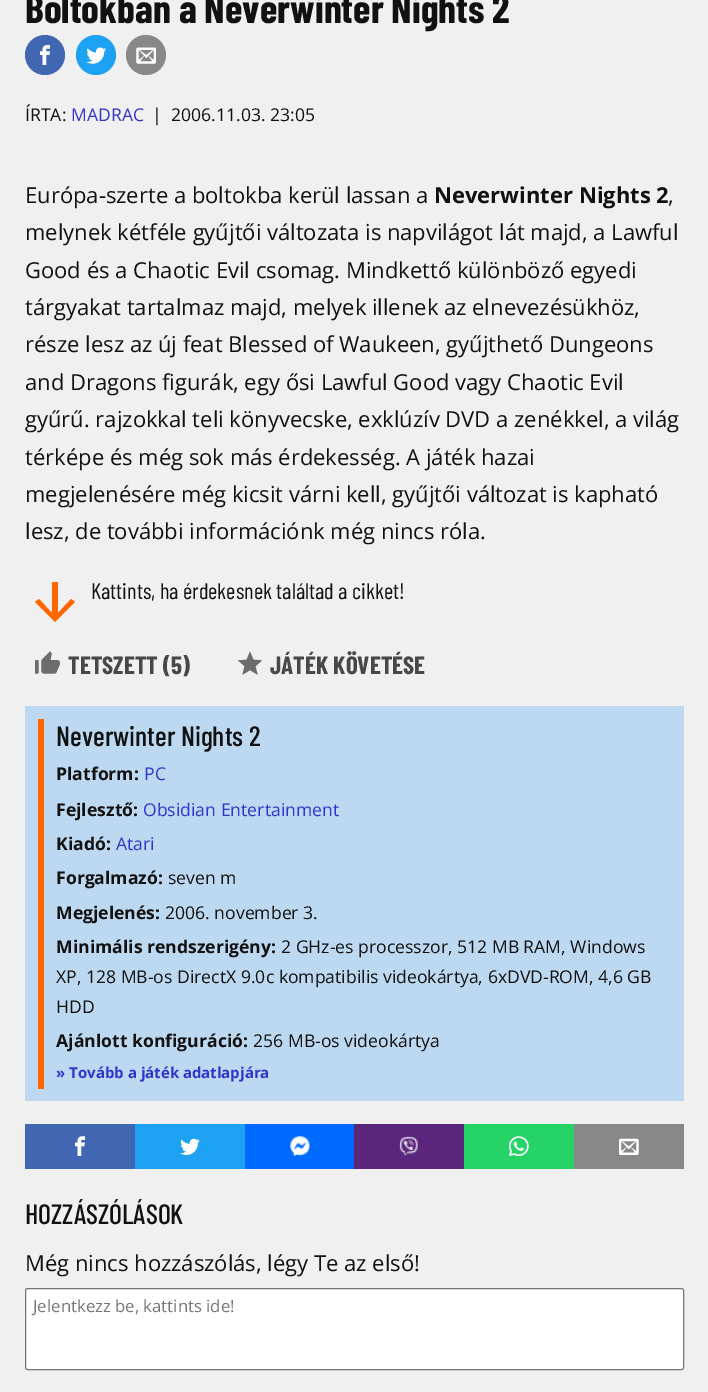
%!PS
<< /PageSize [708 1392] >> setpagedevice
/rgb { 3 { 255 div 3 1 roll } repeat setrgbcolor } def
/font { [ exch dup neg 0 0 3 -1 roll 0 0 ] selectfont } def
/circle { newpath 0 360 arc closepath } def
/roundrect { 5 dict begin { /r /h /w /y /x } { exch def } forall
  x r add y moveto x w add y 2 copy h add r arct x w add y h add x 1 index r arct
  x y h add x y r arct x y 2 copy exch w add exch r arct closepath end } def
/picture { 5 dict begin { /h /w /y /x /name } { exch def } forall
  gsave x y translate w h scale
  w h 8 [w 0 0 h 0 0] name (r) file false 3 colorimage grestore end } def
0 1392 translate 1 -1 scale
4 setmiterlimit
240 240 240 rgb
0 0 708 1392 rectfill
66 103 178 rgb
45 55 20 circle fill
(img/1.rgb) 40 45 10 20 picture
29 161 242 rgb
96 55 20 circle fill
(img/2.rgb) 86 47 20 17 picture
136 136 136 rgb
146 55 20 circle fill
(img/3.rgb) 136 47 20 17 picture
255 102 0 rgb
75 602 moveto 71 599 lineto 58 613 lineto 58 582 lineto 52 582 lineto 52 613 lineto 39 599 lineto 35 602 lineto 55 622 lineto closepath fill
(img/4.rgb) 35 651 25 23 picture
(img/5.rgb) 237 651 26 24 picture
[
  [25 706 659 395 188 217 241]
  [38 719 6 370 255 102 0]
  [25 1124 110 45 66 103 178]
] { aload pop rgb rectfill } forall
(img/6.rgb) 75 1136 10 20 picture
29 161 242 rgb
135 1124 110 45 rectfill
(img/7.rgb) 180 1138 20 17 picture
0 106 255 rgb
245 1124 109 45 rectfill
(img/8.rgb) 290 1136 20 20 picture
89 38 124 rgb
354 1124 110 45 rectfill
(img/9.rgb) 399 1136 19 20 picture
37 211 102 rgb
464 1124 110 45 rectfill
(img/10.rgb) 509 1136 20 20 picture
136 136 136 rgb
574 1124 110 45 rectfill
(img/11.rgb) 619 1138 20 17 picture
255 255 255 rgb
25.5 1288.5 658 81 2 roundrect gsave fill grestore
118 118 118 rgb
stroke
/BarlowCondensed-Bold 40 font
17 17 17 rgb
25 23 moveto (Boltokban a Neverwinter Nights 2) show
/OpenSans-Regular 17.6 font
25 121 moveto (ÍRTA:) show
51 51 204 rgb
71 121 moveto (MADRAC) show
17 17 17 rgb
152 121 moveto (|) show
171 121 moveto (2006.11.03. 23:05) show
/OpenSans-Regular 22 font
25 203 moveto (Európa-szerte a boltokba kerül lassan a) show
/OpenSans-Bold 22 font
434 203 moveto (Neverwinter Nights 2) show
/OpenSans-Regular 22 font
[
  [(,) 668 203]
  [(melynek kétféle gyűjtői változata is napvilágot lát majd, a Lawful) 25 240]
  [(Good és a Chaotic Evil csomag. Mindkettő különböző egyedi) 25 278]
  [(tárgyakat tartalmaz majd, melyek illenek az elnevezésükhöz,) 25 315]
  [(része lesz az új feat Blessed of Waukeen, gyűjthető Dungeons) 25 352]
  [(and Dragons figurák, egy ősi Lawful Good vagy Chaotic Evil) 25 390]
  [(gyűrű. rajzokkal teli könyvecske, exklúzív DVD a zenékkel, a világ) 25 427]
  [(térképe és még sok más érdekesség. A játék hazai) 25 465]
  [(megjelenésére még kicsit várni kell, gyűjtői változat is kapható) 25 502]
  [(lesz, de további információnk még nincs róla.) 25 539]
] { aload pop moveto show } forall
/BarlowCondensed-Regular 22.5 font
91 599 moveto (Kattints, ha érdekesnek találtad a cikket!) show
/BarlowCondensed-Bold 25 font
72 72 72 rgb
68 674 moveto (TETSZETT \(5\)) show
270 674 moveto (JÁTÉK KÖVETÉSE) show
/BarlowCondensed-Medium 28 font
17 17 17 rgb
56 746 moveto (Neverwinter Nights 2) show
/OpenSans-Bold 17.6 font
56 780 moveto (Platform:) show
/OpenSans-Regular 17.6 font
51 51 204 rgb
144 780 moveto (PC) show
/OpenSans-Bold 17.6 font
17 17 17 rgb
56 816 moveto (Fejlesztő:) show
/OpenSans-Regular 17.6 font
51 51 204 rgb
143 816 moveto (Obsidian Entertainment) show
/OpenSans-Bold 17.6 font
17 17 17 rgb
56 850 moveto (Kiadó:) show
/OpenSans-Regular 17.6 font
51 51 204 rgb
116 850 moveto (Atari) show
/OpenSans-Bold 17.6 font
17 17 17 rgb
56 884 moveto (Forgalmazó:) show
/OpenSans-Regular 17.6 font
168 884 moveto (seven m) show
/OpenSans-Bold 17.6 font
56 919 moveto (Megjelenés:) show
/OpenSans-Regular 17.6 font
165 919 moveto (2006. november 3.) show
/OpenSans-Bold 17.6 font
56 953 moveto (Minimális rendszerigény:) show
/OpenSans-Regular 17.6 font
[
  [(2 GHz-es processzor, 512 MB RAM, Windows) 281 953]
  [(XP, 128 MB-os DirectX 9.0c kompatibilis videokártya, 6xDVD-ROM, 4,6 GB) 56 983]
  [(HDD) 56 1013]
] { aload pop moveto show } forall
/OpenSans-Bold 17.6 font
56 1047 moveto (Ajánlott konfiguráció:) show
/OpenSans-Regular 17.6 font
253 1047 moveto (256 MB-os videokártya) show
/OpenSans-Bold 15 font
51 51 204 rgb
56 1078 moveto (» Tovább a játék adatlapjára) show
/BarlowCondensed-Medium 28 font
17 17 17 rgb
25 1224 moveto (HOZZÁSZÓLÁSOK) show
/OpenSans-Regular 22 font
25 1271 moveto (Még nincs hozzászólás, légy Te az első!) show
/OpenSans-Regular 16.75 font
117 117 117 rgb
33 1312 moveto (Jelentkezz be, kattints ide!) show
showpage
